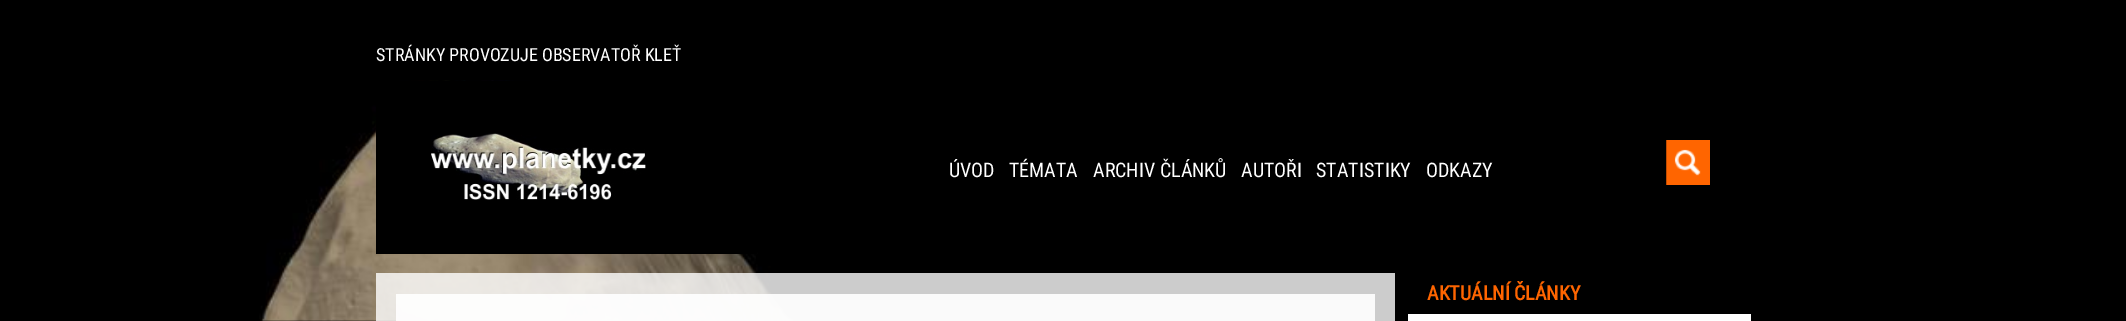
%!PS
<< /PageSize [2126 321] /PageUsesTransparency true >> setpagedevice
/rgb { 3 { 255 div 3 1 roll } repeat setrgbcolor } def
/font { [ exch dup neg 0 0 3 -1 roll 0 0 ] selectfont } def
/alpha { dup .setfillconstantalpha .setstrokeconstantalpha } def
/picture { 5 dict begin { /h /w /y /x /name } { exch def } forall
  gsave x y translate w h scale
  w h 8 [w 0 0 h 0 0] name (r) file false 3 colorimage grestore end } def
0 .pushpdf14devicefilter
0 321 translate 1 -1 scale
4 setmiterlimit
0 0 0 rgb
0 0 2126 321 rectfill
(img/1.rgb) 259 80 552 241 picture
376 81 381 173 rectfill
(img/2.rgb) 431 133 215 67 picture
(img/3.rgb) 1666 140 44 45 picture
0.8 alpha
[
  [376 273 1019 48 255 255 255]
] { aload pop rgb rectfill } forall
0.9 alpha
[
  [396 294 979 27 255 255 255]
] { aload pop rgb rectfill } forall
1 alpha
[
  [1408 314 343 7 255 255 255]
] { aload pop rgb rectfill } forall
/RobotoCondensed-Regular 18 font
376 61 moveto (STRÁNKY PROVOZUJE OBSERVATOŘ KLEŤ) show
/RobotoCondensed-Regular 20 font
[
  [(ÚVOD) 949 177]
  [(TÉMATA) 1009 177]
  [(ARCHIV ČLÁNKŮ) 1093 177]
  [(AUTOŘI) 1241 177]
  [(STATISTIKY) 1316 177]
  [(ODKAZY) 1426 177]
] { aload pop moveto show } forall
/RobotoCondensed-Bold 20 font
255 101 0 rgb
1427 300 moveto (AKTUÁLNÍ ČLÁNKY) show
.poppdf14devicefilter showpage
